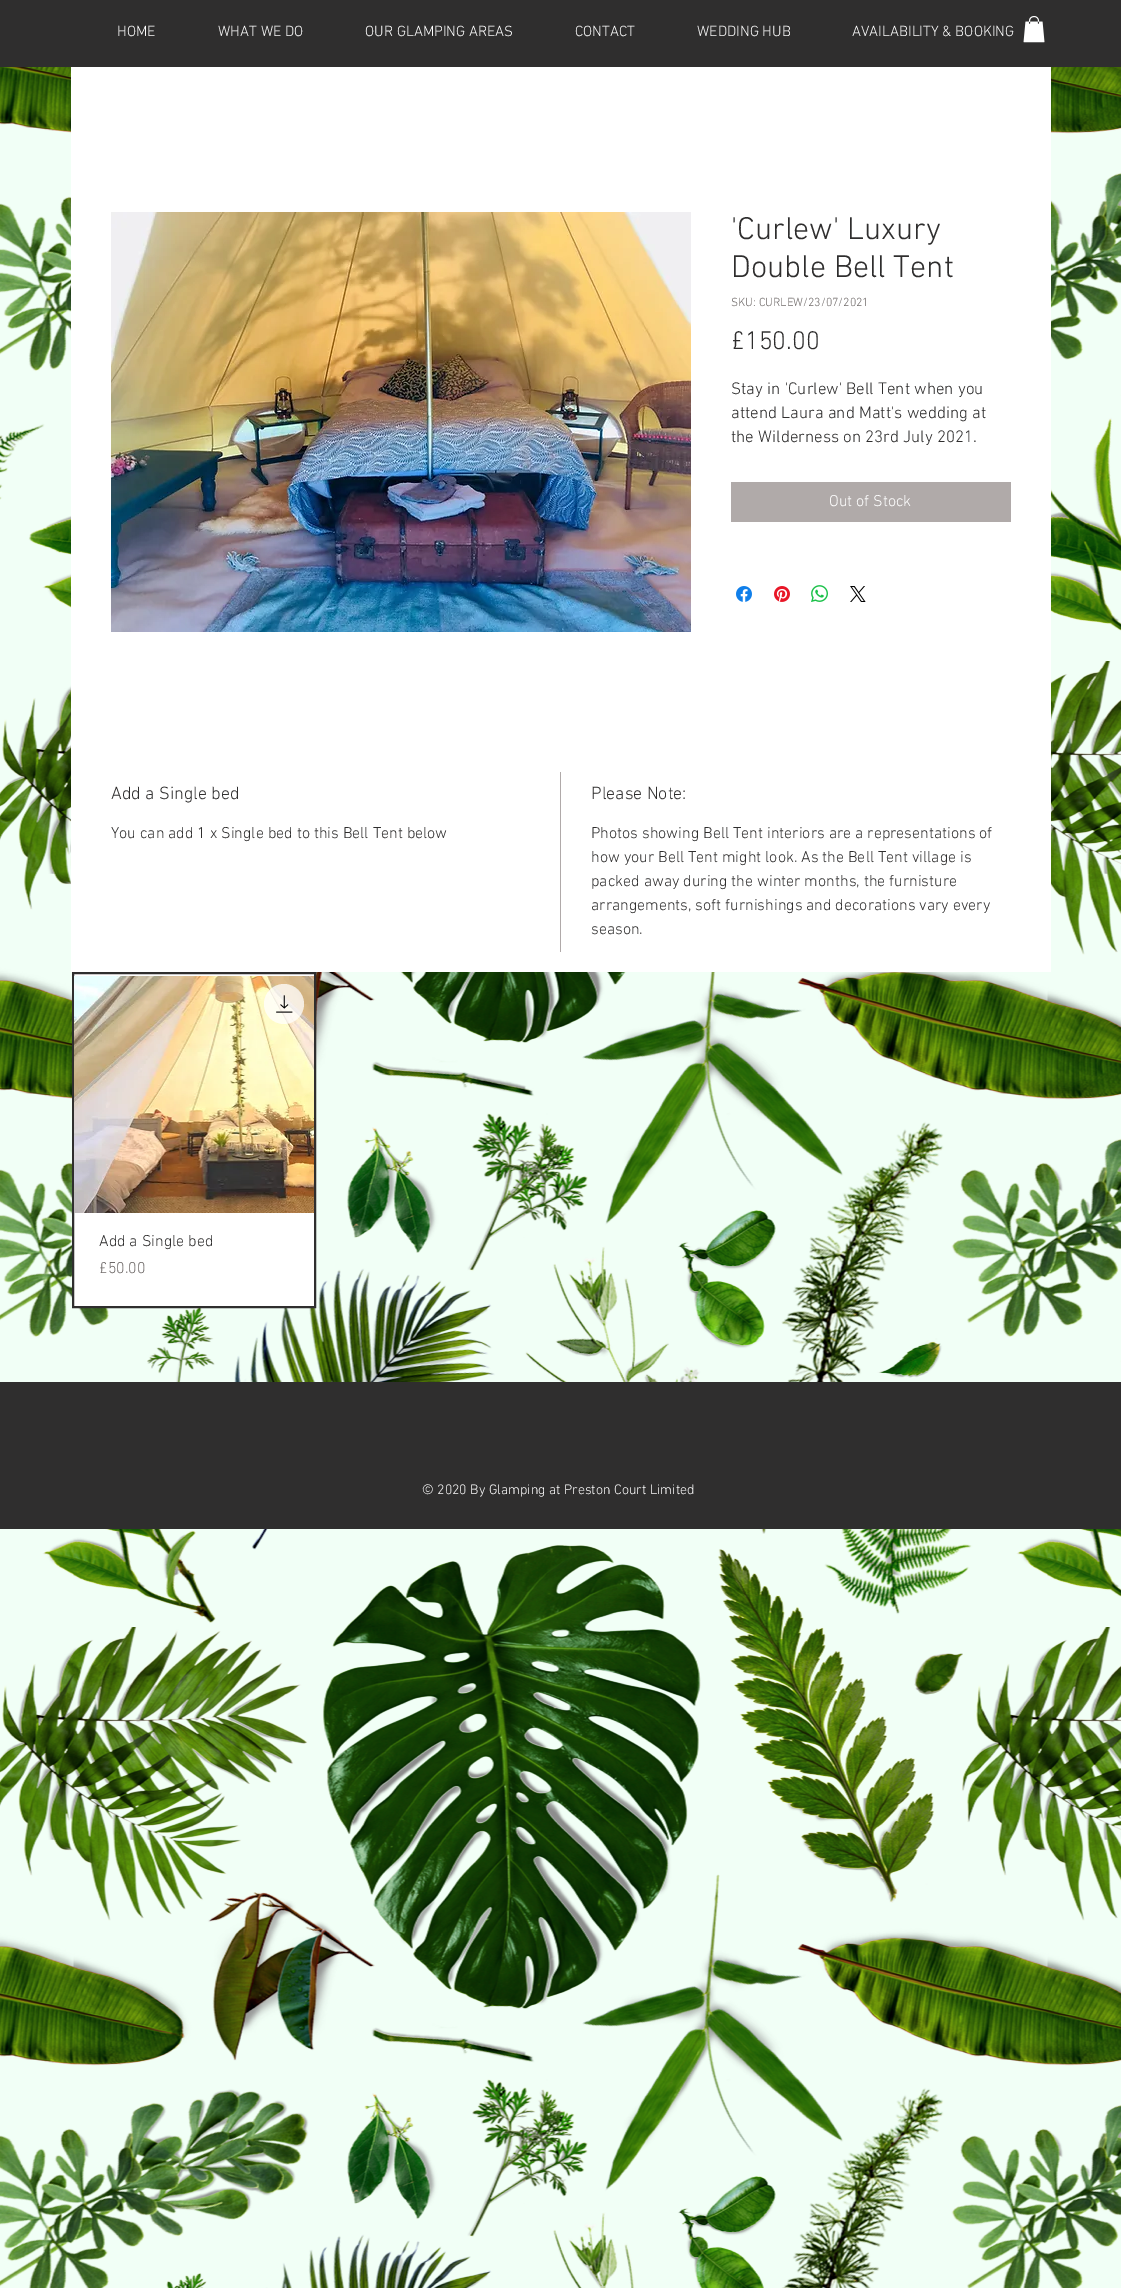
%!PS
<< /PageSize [1121 2288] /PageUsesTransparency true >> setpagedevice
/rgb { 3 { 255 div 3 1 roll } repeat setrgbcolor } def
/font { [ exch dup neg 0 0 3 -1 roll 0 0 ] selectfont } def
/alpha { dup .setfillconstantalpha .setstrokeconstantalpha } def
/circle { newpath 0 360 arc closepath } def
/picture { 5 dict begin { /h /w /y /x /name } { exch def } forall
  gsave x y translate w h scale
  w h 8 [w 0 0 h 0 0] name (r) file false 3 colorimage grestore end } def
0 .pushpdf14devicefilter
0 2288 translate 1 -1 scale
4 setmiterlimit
241 255 246 rgb
0 0 1121 2288 rectfill
47 46 46 rgb
0 0 1121 67 rectfill
(img/1.rgb) 1023 16 22 27 picture
(img/9.rgb) 0 67 1121 2221 picture
255 255 255 rgb
71 67 980 905 rectfill
(img/2.rgb) 111 212 580 420 picture
176 170 169 rgb
731 482 280 40 rectfill
(img/3.rgb) 736 586 16 16 picture
(img/4.rgb) 774 586 16 16 picture
(img/5.rgb) 811 585 17 17 picture
(img/6.rgb) 850 586 16 16 picture
560 772 1 180 rectfill
255 255 255 rgb
73 973 moveto 315 973 lineto 315 1307 lineto 73 1307 lineto closepath gsave fill grestore
47 46 46 rgb
2 setlinewidth
stroke
(img/7.rgb) 74 976 240 237 picture
0.75 alpha
255 255 255 rgb
284 1004 20 circle fill
1 alpha
(img/8.rgb) 276 995 17 18 picture
47 46 46 rgb
0 1382 1121 147 rectfill
/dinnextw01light-Light 15 font
255 255 255 rgb
[
  [(HOME) 117 36]
  [(WHAT WE DO) 218 36]
  [(OUR GLAMPING AREAS) 365 36]
  [(CONTACT) 575 36]
  [(WEDDING HUB) 697 36]
  [(AVAILABILITY & BOOKING) 852 36]
] { aload pop moveto show } forall
/dinnextw01light-Light 32 font
47 46 46 rgb
731 239 moveto ('Curlew' Luxury) show
731 277 moveto (Double Bell Tent) show
/dinnextw01light-Light 12 font
110 105 104 rgb
731 306 moveto (SKU: CURLEW/23/07/2021) show
/dinnextw01light-Light 26 font
47 46 46 rgb
731 349 moveto (£150.00) show
/dinnextw01light-Light 17 font
[
  [(Stay in 'Curlew' Bell Tent when you) 731 394]
  [(attend Laura and Matt's wedding at) 731 418]
  [(the Wilderness on 23rd July 2021.) 731 442]
] { aload pop moveto show } forall
/dinnextw01light-Light 16 font
255 255 255 rgb
829 506 moveto (Out of Stock) show
/dinnextw01light-Light 18 font
47 46 46 rgb
111 799 moveto (Add a Single bed) show
/dinnextw01light-Light 16 font
111 838 moveto (You can add 1 x Single bed to this Bell Tent below) show
/dinnextw01light-Light 18 font
591 799 moveto (Please Note:) show
/dinnextw01light-Light 16 font
[
  [(Photos showing Bell Tent interiors are a representations of) 591 838]
  [(how your Bell Tent might look. As the Bell Tent village is) 591 862]
  [(packed away during the winter months, the furnisture) 591 886]
  [(arrangements, soft furnishings and decorations vary every) 591 910]
  [(season.) 591 934]
  [(Add a Single bed) 99 1246]
] { aload pop moveto show } forall
110 105 104 rgb
99 1273 moveto (£50.00) show
/dinnextw01light-Light 14 font
255 255 255 rgb
422 1494 moveto (© 2020 By Glamping at Preston Court Limited) show
.poppdf14devicefilter showpage
